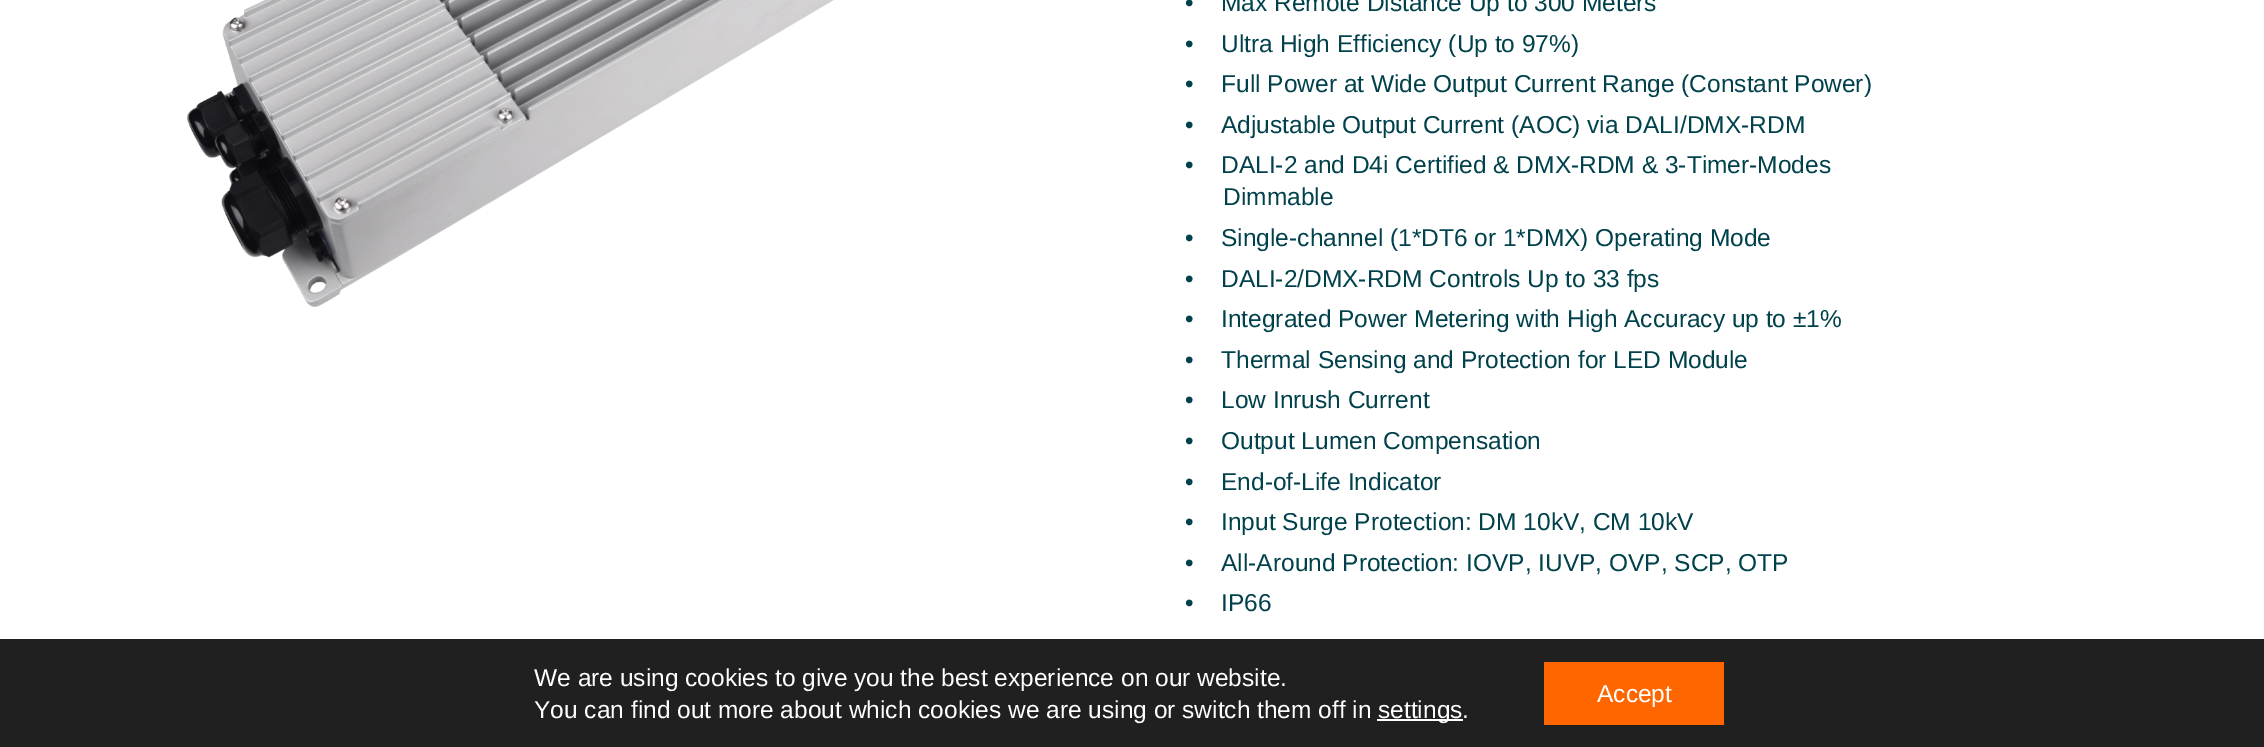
%!PS
<< /PageSize [2264 747] >> setpagedevice
/rgb { 3 { 255 div 3 1 roll } repeat setrgbcolor } def
/font { [ exch dup neg 0 0 3 -1 roll 0 0 ] selectfont } def
/picture { 5 dict begin { /h /w /y /x /name } { exch def } forall
  gsave x y translate w h scale
  w h 8 [w 0 0 h 0 0] name (r) file false 3 colorimage grestore end } def
0 747 translate 1 -1 scale
4 setmiterlimit
255 255 255 rgb
0 0 2264 747 rectfill
(img/1.rgb) 187 0 647 307 picture
[
  [0 639 2264 108 32 32 32]
  [1377 719 86 2 255 255 255]
  [1544 662 180 63 255 102 0]
] { aload pop rgb rectfill } forall
/LiberationSans-Regular 24.5 font
0 65 76 rgb
[
  [(•) 1185 11]
  [(Max Remote Distance Up to 300 Meters) 1221 11]
  [(•) 1185 52]
  [(Ultra High Efficiency \(Up to 97%\)) 1221 52]
  [(•) 1185 92]
  [(Full Power at Wide Output Current Range \(Constant Power\)) 1221 92]
  [(•) 1185 133]
  [(Adjustable Output Current \(AOC\) via DALI/DMX-RDM) 1221 133]
  [(•) 1185 173]
  [(DALI-2 and D4i Certified & DMX-RDM & 3-Timer-Modes) 1221 173]
  [(Dimmable) 1223 205]
  [(•) 1185 246]
  [(Single-channel \(1*DT6 or 1*DMX\) Operating Mode) 1221 246]
  [(•) 1185 287]
  [(DALI-2/DMX-RDM Controls Up to 33 fps) 1221 287]
  [(•) 1185 327]
  [(Integrated Power Metering with High Accuracy up to ±1%) 1221 327]
  [(•) 1185 368]
  [(Thermal Sensing and Protection for LED Module) 1221 368]
  [(•) 1185 408]
  [(Low Inrush Current) 1221 408]
  [(•) 1185 449]
  [(Output Lumen Compensation) 1221 449]
  [(•) 1185 490]
  [(End-of-Life Indicator) 1221 490]
  [(•) 1185 530]
  [(Input Surge Protection: DM 10kV, CM 10kV) 1221 530]
  [(•) 1185 571]
  [(All-Around Protection: IOVP, IUVP, OVP, SCP, OTP) 1221 571]
  [(•) 1185 611]
  [(IP66) 1221 611]
] { aload pop moveto show } forall
255 255 255 rgb
[
  [(We are using cookies to give you the best experience on our website.) 534 686]
  [(You can find out more about which cookies we are using or switch them off in) 534 718]
  [(settings.) 1378 718]
  [(Accept) 1597 702]
] { aload pop moveto show } forall
showpage
